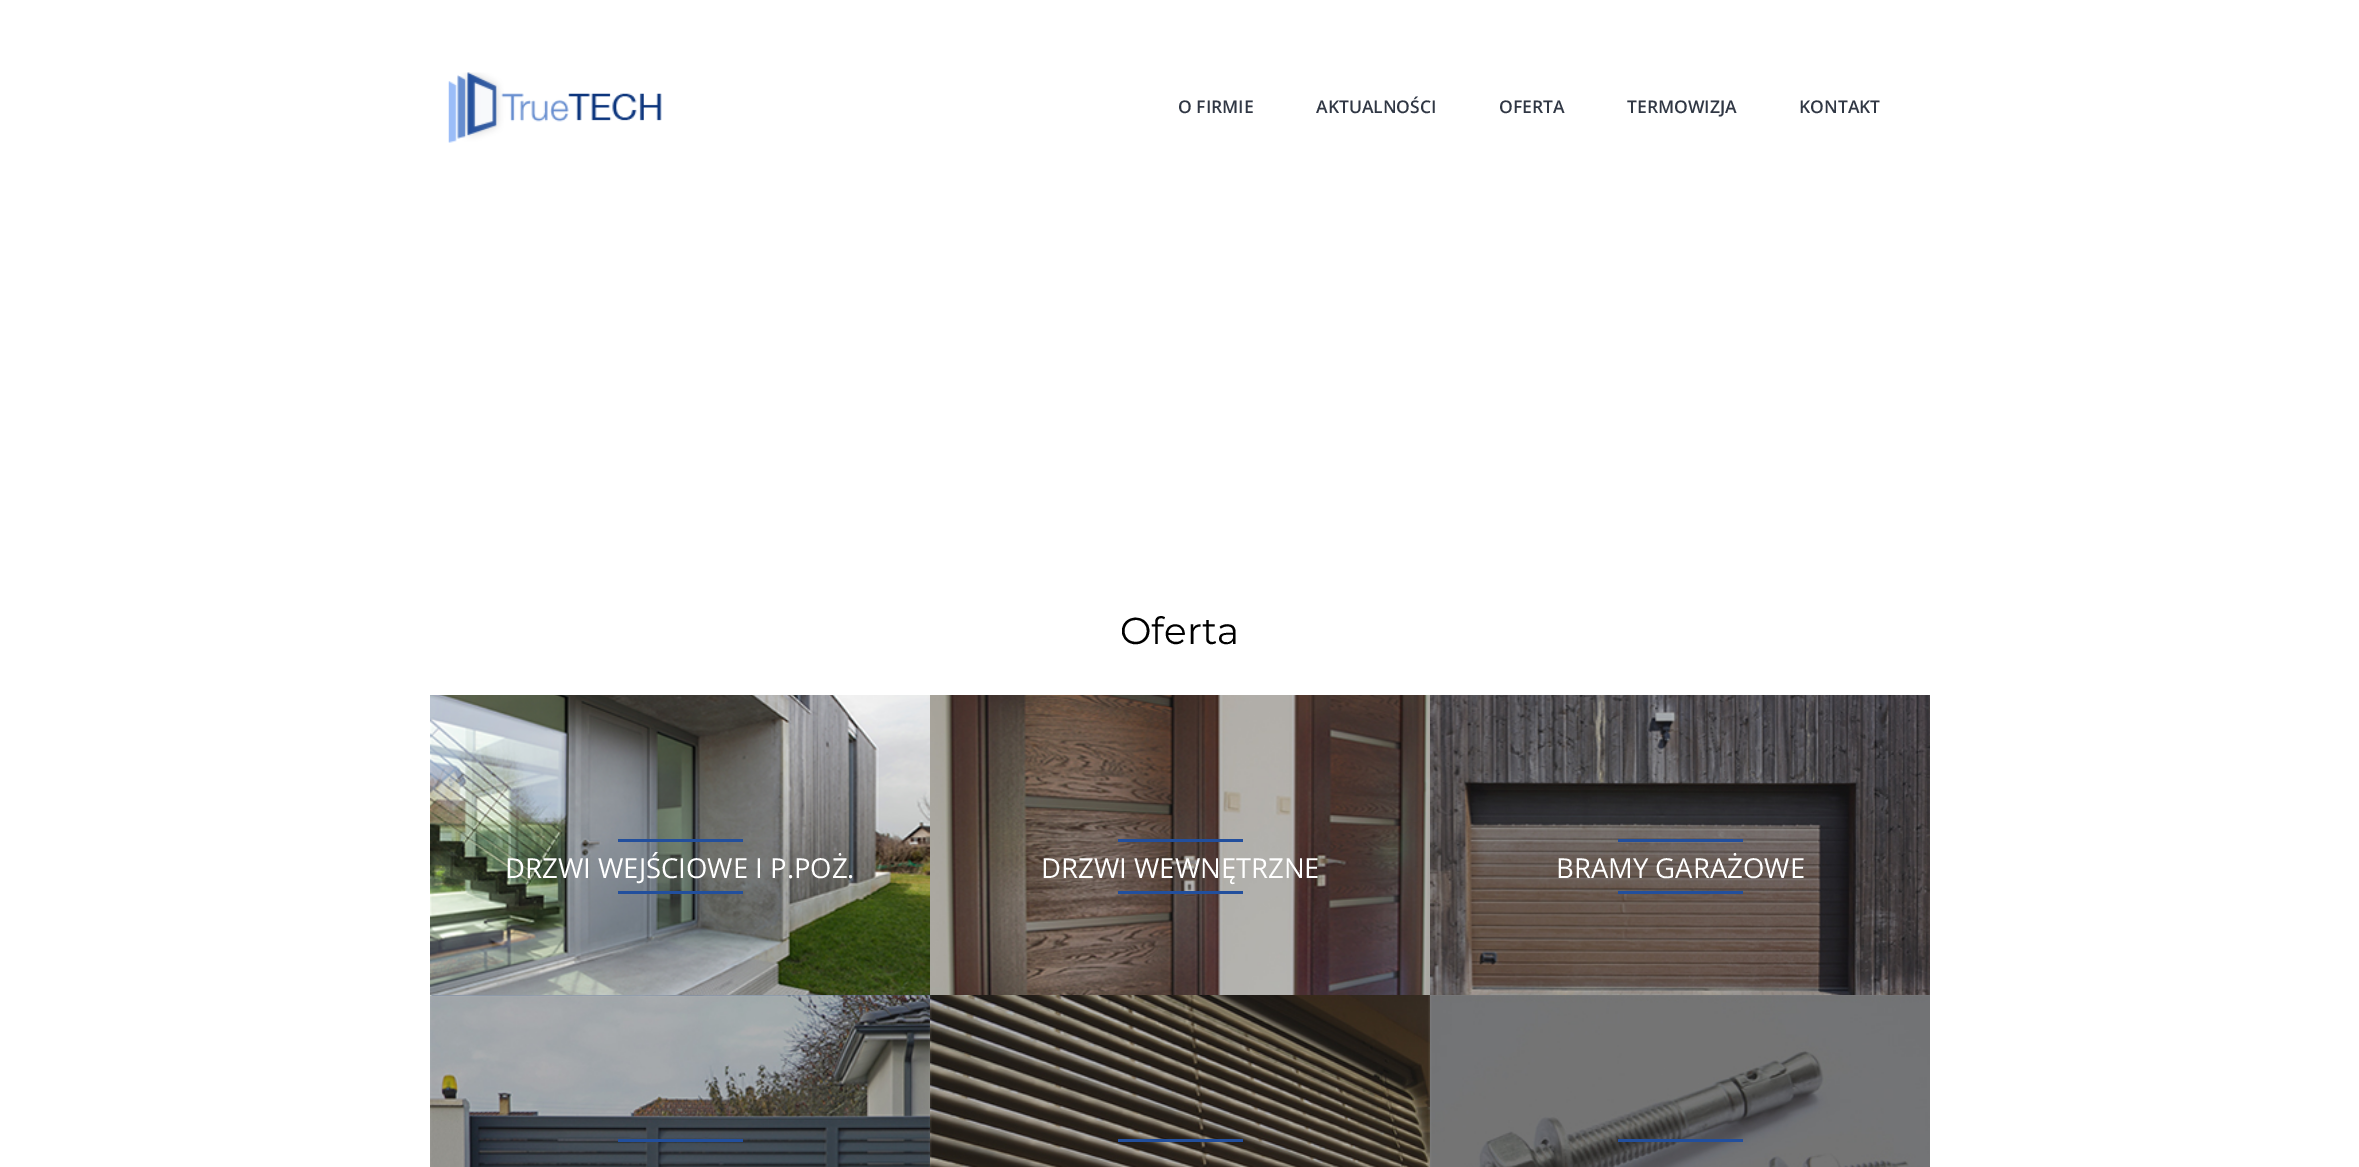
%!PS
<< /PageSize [2359 1167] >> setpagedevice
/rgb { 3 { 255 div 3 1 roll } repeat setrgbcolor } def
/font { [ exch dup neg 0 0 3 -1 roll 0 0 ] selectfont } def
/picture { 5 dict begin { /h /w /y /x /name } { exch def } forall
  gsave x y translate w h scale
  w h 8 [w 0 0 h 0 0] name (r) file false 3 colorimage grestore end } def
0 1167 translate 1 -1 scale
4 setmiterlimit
255 255 255 rgb
0 0 2359 1167 rectfill
(img/1.rgb) 448 72 214 71 picture
(img/2.rgb) 430 695 500 300 picture
34 79 157 rgb
618 839 125 3 rectfill
618 891 125 3 rectfill
(img/3.rgb) 930 695 500 300 picture
1118 839 125 3 rectfill
1118 891 125 3 rectfill
(img/4.rgb) 1430 695 500 300 picture
1618 839 125 3 rectfill
1618 891 125 3 rectfill
(img/5.rgb) 430 995 500 172 picture
618 1139 125 3 rectfill
(img/6.rgb) 930 995 500 172 picture
1118 1139 125 3 rectfill
(img/7.rgb) 1430 995 500 172 picture
1618 1139 125 3 rectfill
/OpenSans-SemiBold 17.5 font
48 55 68 rgb
[
  [(O FIRMIE) 1178 113]
  [(AKTUALNOŚCI) 1316 113]
  [(OFERTA) 1499 113]
  [(TERMOWIZJA) 1627 113]
  [(KONTAKT) 1799 113]
] { aload pop moveto show } forall
/Montserrat-Regular 37.5 font
0 0 0 rgb
1120 644 moveto (Oferta) show
/OpenSans-Regular 27.5 font
255 255 255 rgb
[
  [(DRZWI WEJŚCIOWE I P.POŻ.) 505 878]
  [(DRZWI WEWNĘTRZNE) 1041 878]
  [(BRAMY GARAŻOWE) 1556 878]
] { aload pop moveto show } forall
showpage
